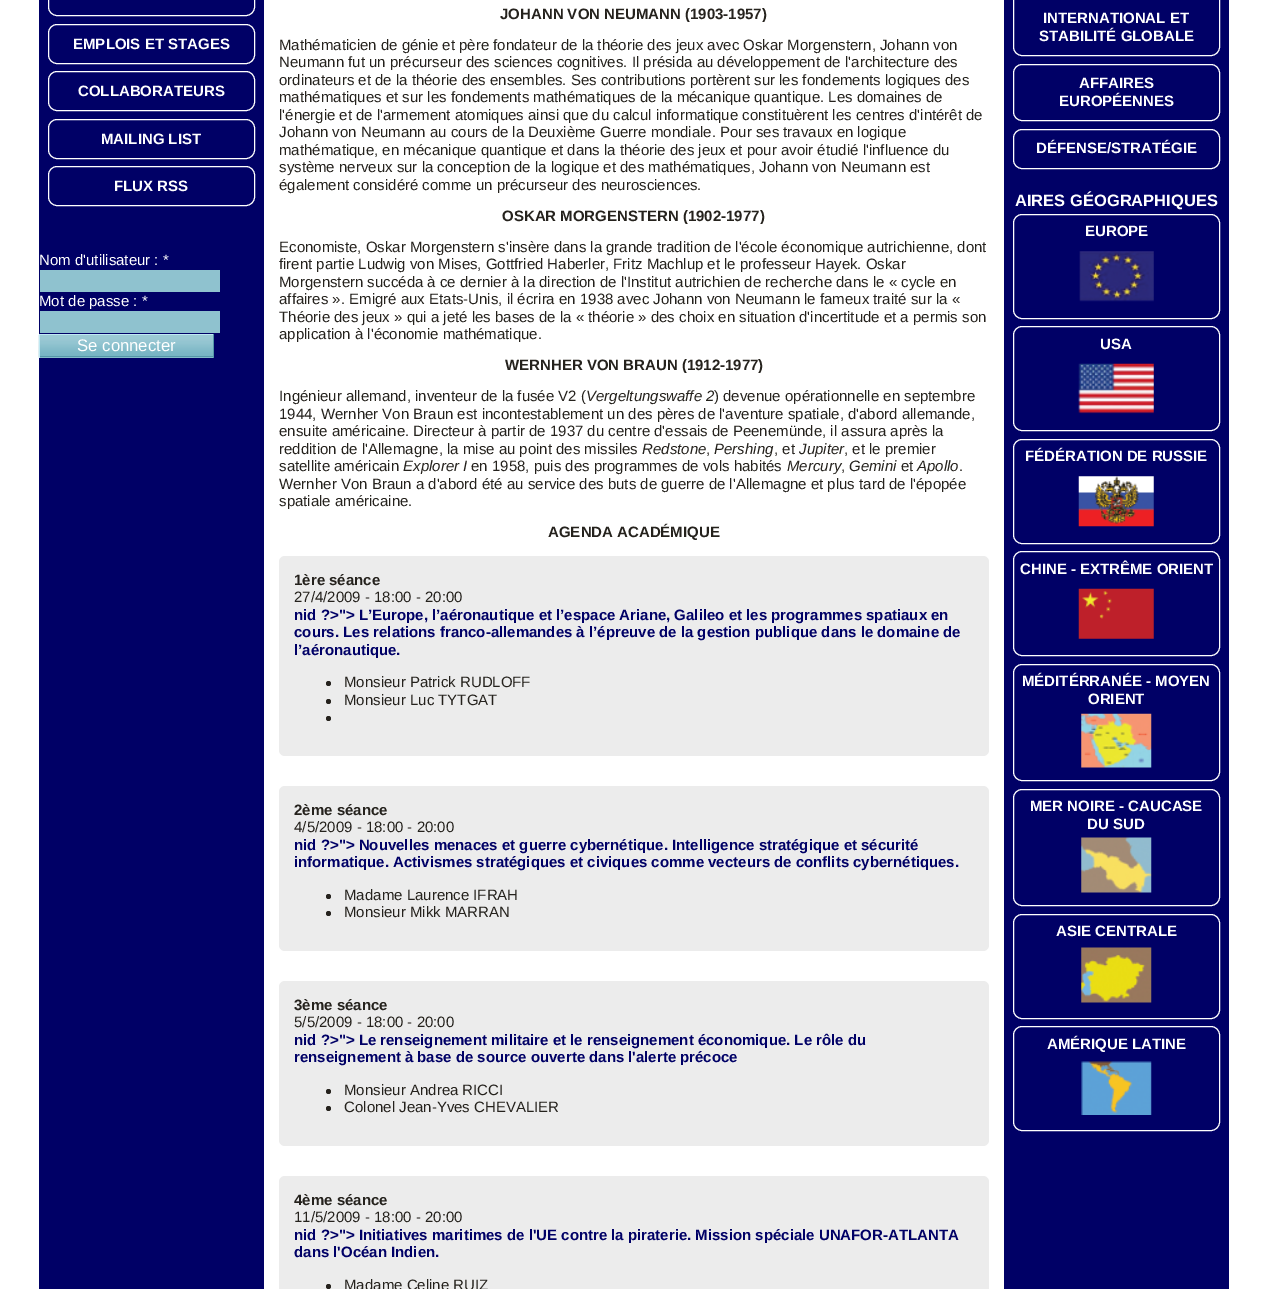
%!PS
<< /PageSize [1267 1289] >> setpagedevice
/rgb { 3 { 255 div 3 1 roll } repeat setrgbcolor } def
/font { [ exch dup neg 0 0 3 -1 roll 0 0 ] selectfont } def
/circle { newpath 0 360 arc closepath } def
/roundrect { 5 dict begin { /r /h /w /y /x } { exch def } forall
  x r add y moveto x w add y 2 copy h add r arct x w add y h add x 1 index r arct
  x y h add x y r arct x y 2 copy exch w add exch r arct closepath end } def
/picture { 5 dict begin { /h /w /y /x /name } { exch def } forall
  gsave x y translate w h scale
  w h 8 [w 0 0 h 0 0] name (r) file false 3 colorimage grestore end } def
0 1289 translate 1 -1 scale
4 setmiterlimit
255 255 255 rgb
0 0 1267 1289 rectfill
0 0 102 rgb
39 0 225 1289 rectfill
255 255 255 rgb
48.5 -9.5 206 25 8.5 roundrect stroke
48.5 24.5 206 39 8.5 roundrect stroke
48.5 71.5 206 39 8.5 roundrect stroke
48.5 119.5 206 39 8.5 roundrect stroke
48.5 166.5 206 39 8.5 roundrect stroke
[
  [40 270 180 22 143 194 207]
  [40 311 180 22 143 194 207]
  [40 357 173 1 143 194 207]
] { aload pop rgb rectfill } forall
(img/1.rgb) 38 335 175 23 picture
[
  [39 334 175 1 191 232 242]
  [213 334 1 24 84 151 168]
  [39 356 175 1 84 151 168]
  [39 334 1 24 191 232 242]
] { aload pop rgb rectfill } forall
236 236 236 rgb
279 556 710 200 6 roundrect fill
37 34 29 rgb
328.5 683.5 2.5 circle fill
328.5 701.5 2.5 circle fill
328.5 718.5 2.5 circle fill
236 236 236 rgb
279 786 710 165 6 roundrect fill
37 34 29 rgb
328.5 896.5 2.5 circle fill
328.5 913.5 2.5 circle fill
236 236 236 rgb
279 981 710 165 6 roundrect fill
37 34 29 rgb
328.5 1091.5 2.5 circle fill
328.5 1108.5 2.5 circle fill
236 236 236 rgb
279 1176 710 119 6 roundrect fill
37 34 29 rgb
328.5 1286.5 2.5 circle fill
0 0 102 rgb
1004 0 225 1289 rectfill
255 255 255 rgb
1013.5 -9.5 206 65 8.5 roundrect stroke
1013.5 64.5 206 56 8.5 roundrect stroke
1013.5 129.5 206 39 8.5 roundrect stroke
(img/2.rgb) 1079 251 75 51 picture
1013.5 214.5 206 104 8.5 roundrect stroke
(img/3.rgb) 1078 363 76 51 picture
1013.5 326.5 206 104 8.5 roundrect stroke
(img/4.rgb) 1078 476 76 51 picture
1013.5 439.5 206 104 8.5 roundrect stroke
(img/5.rgb) 1078 588 76 51 picture
1013.5 551.5 206 104 8.5 roundrect stroke
(img/6.rgb) 1081 713 71 55 picture
1013.5 664.5 206 116 8.5 roundrect stroke
(img/7.rgb) 1081 837 71 56 picture
1013.5 789.5 206 116 8.5 roundrect stroke
(img/8.rgb) 1081 947 71 56 picture
1013.5 914.5 206 104 8.5 roundrect stroke
(img/9.rgb) 1081 1061 71 54 picture
1013.5 1026.5 206 104 8.5 roundrect stroke
/LiberationSans-Bold 15 font
[
  [(EMPLOIS ET STAGES) 73 49]
  [(COLLABORATEURS) 78 96]
  [(MAILING LIST) 101 144]
  [(FLUX RSS) 114 191]
] { aload pop moveto show } forall
/LiberationSans-Regular 15 font
39 265 moveto (Nom d'utilisateur : *) show
39 306 moveto (Mot de passe : *) show
/LiberationSans-Regular 16.75 font
77 351 moveto (Se connecter) show
/LiberationSans-Bold 15 font
37 34 29 rgb
500 19 moveto (JOHANN VON NEUMANN \(1903-1957\)) show
/LiberationSans-Regular 15 font
[
  [(Mathématicien de génie et père fondateur de la théorie des jeux avec Oskar Morgenstern, Johann von) 279 50]
  [(Neumann fut un précurseur des sciences cognitives. Il présida au développement de l'architecture des) 279 67]
  [(ordinateurs et de la théorie des ensembles. Ses contributions portèrent sur les fondements logiques des) 279 85]
  [(mathématiques et sur les fondements mathématiques de la mécanique quantique. Les domaines de) 279 102]
  [(l'énergie et de l'armement atomiques ainsi que du calcul informatique constituèrent les centres d'intérêt de) 279 120]
  [(Johann von Neumann au cours de la Deuxième Guerre mondiale. Pour ses travaux en logique) 279 137]
  [(mathématique, en mécanique quantique et dans la théorie des jeux et pour avoir étudié l'influence du) 279 155]
  [(système nerveux sur la conception de la logique et des mathématiques, Johann von Neumann est) 279 172]
  [(également considéré comme un précurseur des neurosciences.) 279 190]
] { aload pop moveto show } forall
/LiberationSans-Bold 15 font
502 221 moveto (OSKAR MORGENSTERN \(1902-1977\)) show
/LiberationSans-Regular 15 font
[
  [(Economiste, Oskar Morgenstern s'insère dans la grande tradition de l'école économique autrichienne, dont) 279 252]
  [(firent partie Ludwig von Mises, Gottfried Haberler, Fritz Machlup et le professeur Hayek. Oskar) 279 269]
  [(Morgenstern succéda à ce dernier à la direction de l'Institut autrichien de recherche dans le « cycle en) 279 287]
  [(affaires ». Emigré aux Etats-Unis, il écrira en 1938 avec Johann von Neumann le fameux traité sur la «) 279 304]
  [(Théorie des jeux » qui a jeté les bases de la « théorie » des choix en situation d'incertitude et a permis son) 279 322]
  [(application à l'économie mathématique.) 279 339]
] { aload pop moveto show } forall
/LiberationSans-Bold 15 font
505 370 moveto (WERNHER VON BRAUN \(1912-1977\)) show
/LiberationSans-Regular 15 font
279 401 moveto (Ingénieur allemand, inventeur de la fusée V2 \() show
/LiberationSans-Italic 15 font
586 401 moveto (Vergeltungswaffe 2) show
/LiberationSans-Regular 15 font
[
  [(\) devenue opérationnelle en septembre) 714 401]
  [(1944, Wernher Von Braun est incontestablement un des pères de l'aventure spatiale, d'abord allemande,) 279 419]
  [(ensuite américaine. Directeur à partir de 1937 du centre d'essais de Peenemünde, il assura après la) 279 436]
  [(reddition de l'Allemagne, la mise au point des missiles) 279 454]
] { aload pop moveto show } forall
/LiberationSans-Italic 15 font
642 454 moveto (Redstone) show
/LiberationSans-Regular 15 font
706 454 moveto (,) show
/LiberationSans-Italic 15 font
714 454 moveto (Pershing) show
/LiberationSans-Regular 15 font
774 454 moveto (, et) show
/LiberationSans-Italic 15 font
799 454 moveto (Jupiter) show
/LiberationSans-Regular 15 font
844 454 moveto (, et le premier) show
279 471 moveto (satellite américain) show
/LiberationSans-Italic 15 font
403 471 moveto (Explorer I) show
/LiberationSans-Regular 15 font
471 471 moveto (en 1958, puis des programmes de vols habités) show
/LiberationSans-Italic 15 font
787 471 moveto (Mercury) show
/LiberationSans-Regular 15 font
841 471 moveto (,) show
/LiberationSans-Italic 15 font
849 471 moveto (Gemini) show
/LiberationSans-Regular 15 font
901 471 moveto (et) show
/LiberationSans-Italic 15 font
917 471 moveto (Apollo) show
/LiberationSans-Regular 15 font
[
  [(.) 959 471]
  [(Wernher Von Braun a d'abord été au service des buts de guerre de l'Allemagne et plus tard de l'épopée) 279 489]
  [(spatiale américaine.) 279 506]
] { aload pop moveto show } forall
/LiberationSans-Bold 15 font
548 537 moveto (AGENDA ACADÉMIQUE) show
294 585 moveto (1ère séance) show
/LiberationSans-Regular 15 font
294 602 moveto (27/4/2009 - 18:00 - 20:00) show
/LiberationSans-Bold 15 font
0 0 102 rgb
[
  [(nid ?>"> L’Europe, l’aéronautique et l’espace Ariane, Galileo et les programmes spatiaux en) 294 620]
  [(cours. Les relations franco-allemandes à l’épreuve de la gestion publique dans le domaine de) 294 637]
  [(l’aéronautique.) 294 655]
] { aload pop moveto show } forall
/LiberationSans-Regular 15 font
37 34 29 rgb
344 687 moveto (Monsieur Patrick RUDLOFF) show
344 705 moveto (Monsieur Luc TYTGAT) show
/LiberationSans-Bold 15 font
294 815 moveto (2ème séance) show
/LiberationSans-Regular 15 font
294 832 moveto (4/5/2009 - 18:00 - 20:00) show
/LiberationSans-Bold 15 font
0 0 102 rgb
294 850 moveto (nid ?>"> Nouvelles menaces et guerre cybernétique. Intelligence stratégique et sécurité) show
294 867 moveto (informatique. Activismes stratégiques et civiques comme vecteurs de conflits cybernétiques.) show
/LiberationSans-Regular 15 font
37 34 29 rgb
344 900 moveto (Madame Laurence IFRAH) show
344 917 moveto (Monsieur Mikk MARRAN) show
/LiberationSans-Bold 15 font
294 1010 moveto (3ème séance) show
/LiberationSans-Regular 15 font
294 1027 moveto (5/5/2009 - 18:00 - 20:00) show
/LiberationSans-Bold 15 font
0 0 102 rgb
294 1045 moveto (nid ?>"> Le renseignement militaire et le renseignement économique. Le rôle du) show
294 1062 moveto (renseignement à base de source ouverte dans l'alerte précoce) show
/LiberationSans-Regular 15 font
37 34 29 rgb
344 1095 moveto (Monsieur Andrea RICCI) show
344 1112 moveto (Colonel Jean-Yves CHEVALIER) show
/LiberationSans-Bold 15 font
294 1205 moveto (4ème séance) show
/LiberationSans-Regular 15 font
294 1222 moveto (11/5/2009 - 18:00 - 20:00) show
/LiberationSans-Bold 15 font
0 0 102 rgb
294 1240 moveto (nid ?>"> Initiatives maritimes de l'UE contre la piraterie. Mission spéciale UNAFOR-ATLANTA) show
294 1257 moveto (dans l'Océan Indien.) show
/LiberationSans-Regular 15 font
37 34 29 rgb
344 1290 moveto (Madame Celine RUIZ) show
/LiberationSans-Bold 15 font
255 255 255 rgb
[
  [(INTERNATIONAL ET) 1043 23]
  [(STABILITÉ GLOBALE) 1039 41]
  [(AFFAIRES) 1079 88]
  [(EUROPÉENNES) 1059 106]
  [(DÉFENSE/STRATÉGIE) 1036 153]
] { aload pop moveto show } forall
/LiberationSans-Bold 16.5 font
1015 206 moveto (AIRES GÉOGRAPHIQUES) show
/LiberationSans-Bold 15 font
[
  [(EUROPE) 1085 236]
  [(USA) 1100 349]
  [(FÉDÉRATION DE RUSSIE) 1025 461]
  [(CHINE - EXTRÊME ORIENT) 1020 574]
  [(MÉDITÉRRANÉE - MOYEN) 1022 686]
  [(ORIENT) 1088 704]
  [(MER NOIRE - CAUCASE) 1030 811]
  [(DU SUD) 1087 829]
  [(ASIE CENTRALE) 1056 936]
  [(AMÉRIQUE LATINE) 1047 1049]
] { aload pop moveto show } forall
showpage
